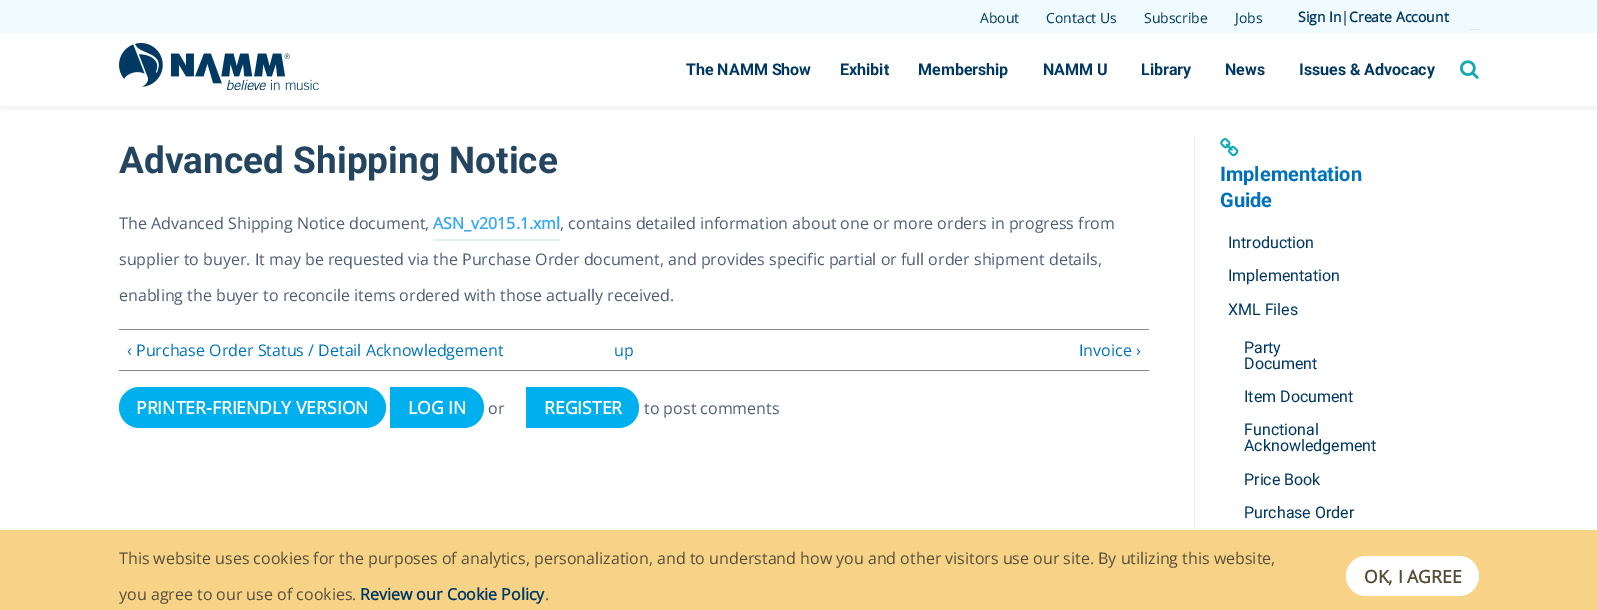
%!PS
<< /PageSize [1597 610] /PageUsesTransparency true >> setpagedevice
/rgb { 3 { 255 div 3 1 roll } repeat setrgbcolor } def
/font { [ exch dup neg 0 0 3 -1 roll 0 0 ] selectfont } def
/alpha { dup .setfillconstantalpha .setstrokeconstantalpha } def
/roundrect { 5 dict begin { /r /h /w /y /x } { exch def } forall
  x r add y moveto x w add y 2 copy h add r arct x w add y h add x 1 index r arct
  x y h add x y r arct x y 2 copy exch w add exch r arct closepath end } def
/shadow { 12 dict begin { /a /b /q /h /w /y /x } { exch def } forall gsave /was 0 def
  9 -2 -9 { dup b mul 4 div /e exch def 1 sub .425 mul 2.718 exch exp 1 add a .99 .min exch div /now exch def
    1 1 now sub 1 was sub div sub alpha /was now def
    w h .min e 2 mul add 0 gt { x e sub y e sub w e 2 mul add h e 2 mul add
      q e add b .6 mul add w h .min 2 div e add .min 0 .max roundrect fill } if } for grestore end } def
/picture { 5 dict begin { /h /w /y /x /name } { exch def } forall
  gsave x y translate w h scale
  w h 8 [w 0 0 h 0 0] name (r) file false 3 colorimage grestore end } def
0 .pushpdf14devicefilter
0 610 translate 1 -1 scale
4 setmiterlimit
255 255 255 rgb
0 0 1597 610 rectfill
gsave
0 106 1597 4 rectclip
0 0 0 rgb
0 3 1597 106 0 3.5 0.06 shadow
grestore
240 251 255 rgb
0 0 1597 33 rectfill
223 234 239 rgb
1469 29 10 1 rectfill
(img/1.rgb) 119 43 200 47 picture
(img/2.rgb) 1460 60 19 19 picture
[
  [433 239 127 2 225 239 241]
  [119 329 1030 1 136 136 136]
  [119 370 1030 1 136 136 136]
] { aload pop rgb rectfill } forall
0 175 237 rgb
119 387 267 41 20.5 roundrect fill
390 387 moveto 463.5 387 lineto 475 387 484 396 484 407.5 curveto 484 419 475 428 463.5 428 curveto 390 428 lineto closepath fill
526 387 moveto 618.5 387 lineto 630 387 639 396 639 407.5 curveto 639 419 630 428 618.5 428 curveto 526 428 lineto closepath fill
239 239 239 rgb
1194 135 1 395 rectfill
(img/3.rgb) 1220 138 19 19 picture
247 211 135 rgb
0 530 1597 80 rectfill
255 255 255 rgb
1346 556 133 40 20 roundrect fill
/OpenSans-Regular 14 font
0 56 100 rgb
[
  [(About) 980 23]
  [(Contact Us) 1046 23]
  [(Subscribe) 1144 23]
  [(Jobs) 1235 23]
] { aload pop moveto show } forall
/OpenSans-Bold 14 font
1298 22 moveto (Sign In) show
75 93 119 rgb
1341 22 moveto (|) show
0 56 100 rgb
1349 22 moveto (Create Account) show
/Roboto-Bold 16 font
[
  [(The NAMM Show) 686 75]
  [(Exhibit) 840 75]
  [(Membership) 918 75]
  [(NAMM U) 1043 75]
  [(Library) 1141 75]
  [(News) 1225 75]
  [(Issues & Advocacy) 1299 75]
] { aload pop moveto show } forall
/Roboto-Bold 37 font
35 69 96 rgb
119 173 moveto (Advanced Shipping Notice) show
/OpenSans-Regular 16 font
75 93 119 rgb
119 229 moveto (The Advanced Shipping Notice document,) show
/OpenSans-Bold 16 font
55 169 239 rgb
433 229 moveto (ASN_v2015.1.xml) show
/OpenSans-Regular 16 font
75 93 119 rgb
[
  [(, contains detailed information about one or more orders in progress from) 560 229]
  [(supplier to buyer. It may be requested via the Purchase Order document, and provides specific partial or full order shipment details,) 119 265]
  [(enabling the buyer to reconcile items ordered with those actually received.) 119 301]
] { aload pop moveto show } forall
0 114 188 rgb
[
  [(‹ Purchase Order Status / Detail Acknowledgement) 127 356]
  [(up) 614 356]
  [(Invoice ›) 1079 356]
] { aload pop moveto show } forall
/OpenSans-Bold 17.6 font
255 255 255 rgb
136 414 moveto (PRINTER-FRIENDLY VERSION) show
408 414 moveto (LOG IN) show
/OpenSans-Regular 16 font
75 93 119 rgb
488 414 moveto (or) show
/OpenSans-Bold 17.6 font
255 255 255 rgb
544 414 moveto (REGISTER) show
/OpenSans-Regular 16 font
75 93 119 rgb
644 414 moveto (to post comments) show
/Roboto-Bold 20 font
0 114 188 rgb
1220 181 moveto (Implementation) show
1220 207 moveto (Guide) show
/Roboto-Regular 16 font
0 56 100 rgb
[
  [(Introduction) 1228 248]
  [(Implementation) 1228 281]
  [(XML Files) 1228 315]
  [(Party) 1244 353]
  [(Document) 1244 369]
  [(Item Document) 1244 402]
  [(Functional) 1244 435]
  [(Acknowledgement) 1244 451]
  [(Price Book) 1244 485]
  [(Purchase Order) 1244 518]
] { aload pop moveto show } forall
/OpenSans-Regular 16 font
86 76 56 rgb
119 564 moveto (This website uses cookies for the purposes of analytics, personalization, and to understand how you and other visitors use our site. By utilizing this website,) show
119 600 moveto (you agree to our use of cookies.) show
/OpenSans-Bold 16 font
0 56 100 rgb
360 600 moveto (Review our Cookie Policy) show
/OpenSans-Regular 16 font
86 76 56 rgb
545 600 moveto (.) show
/OpenSans-Bold 17.6 font
1364 583 moveto (OK, I AGREE) show
.poppdf14devicefilter showpage
